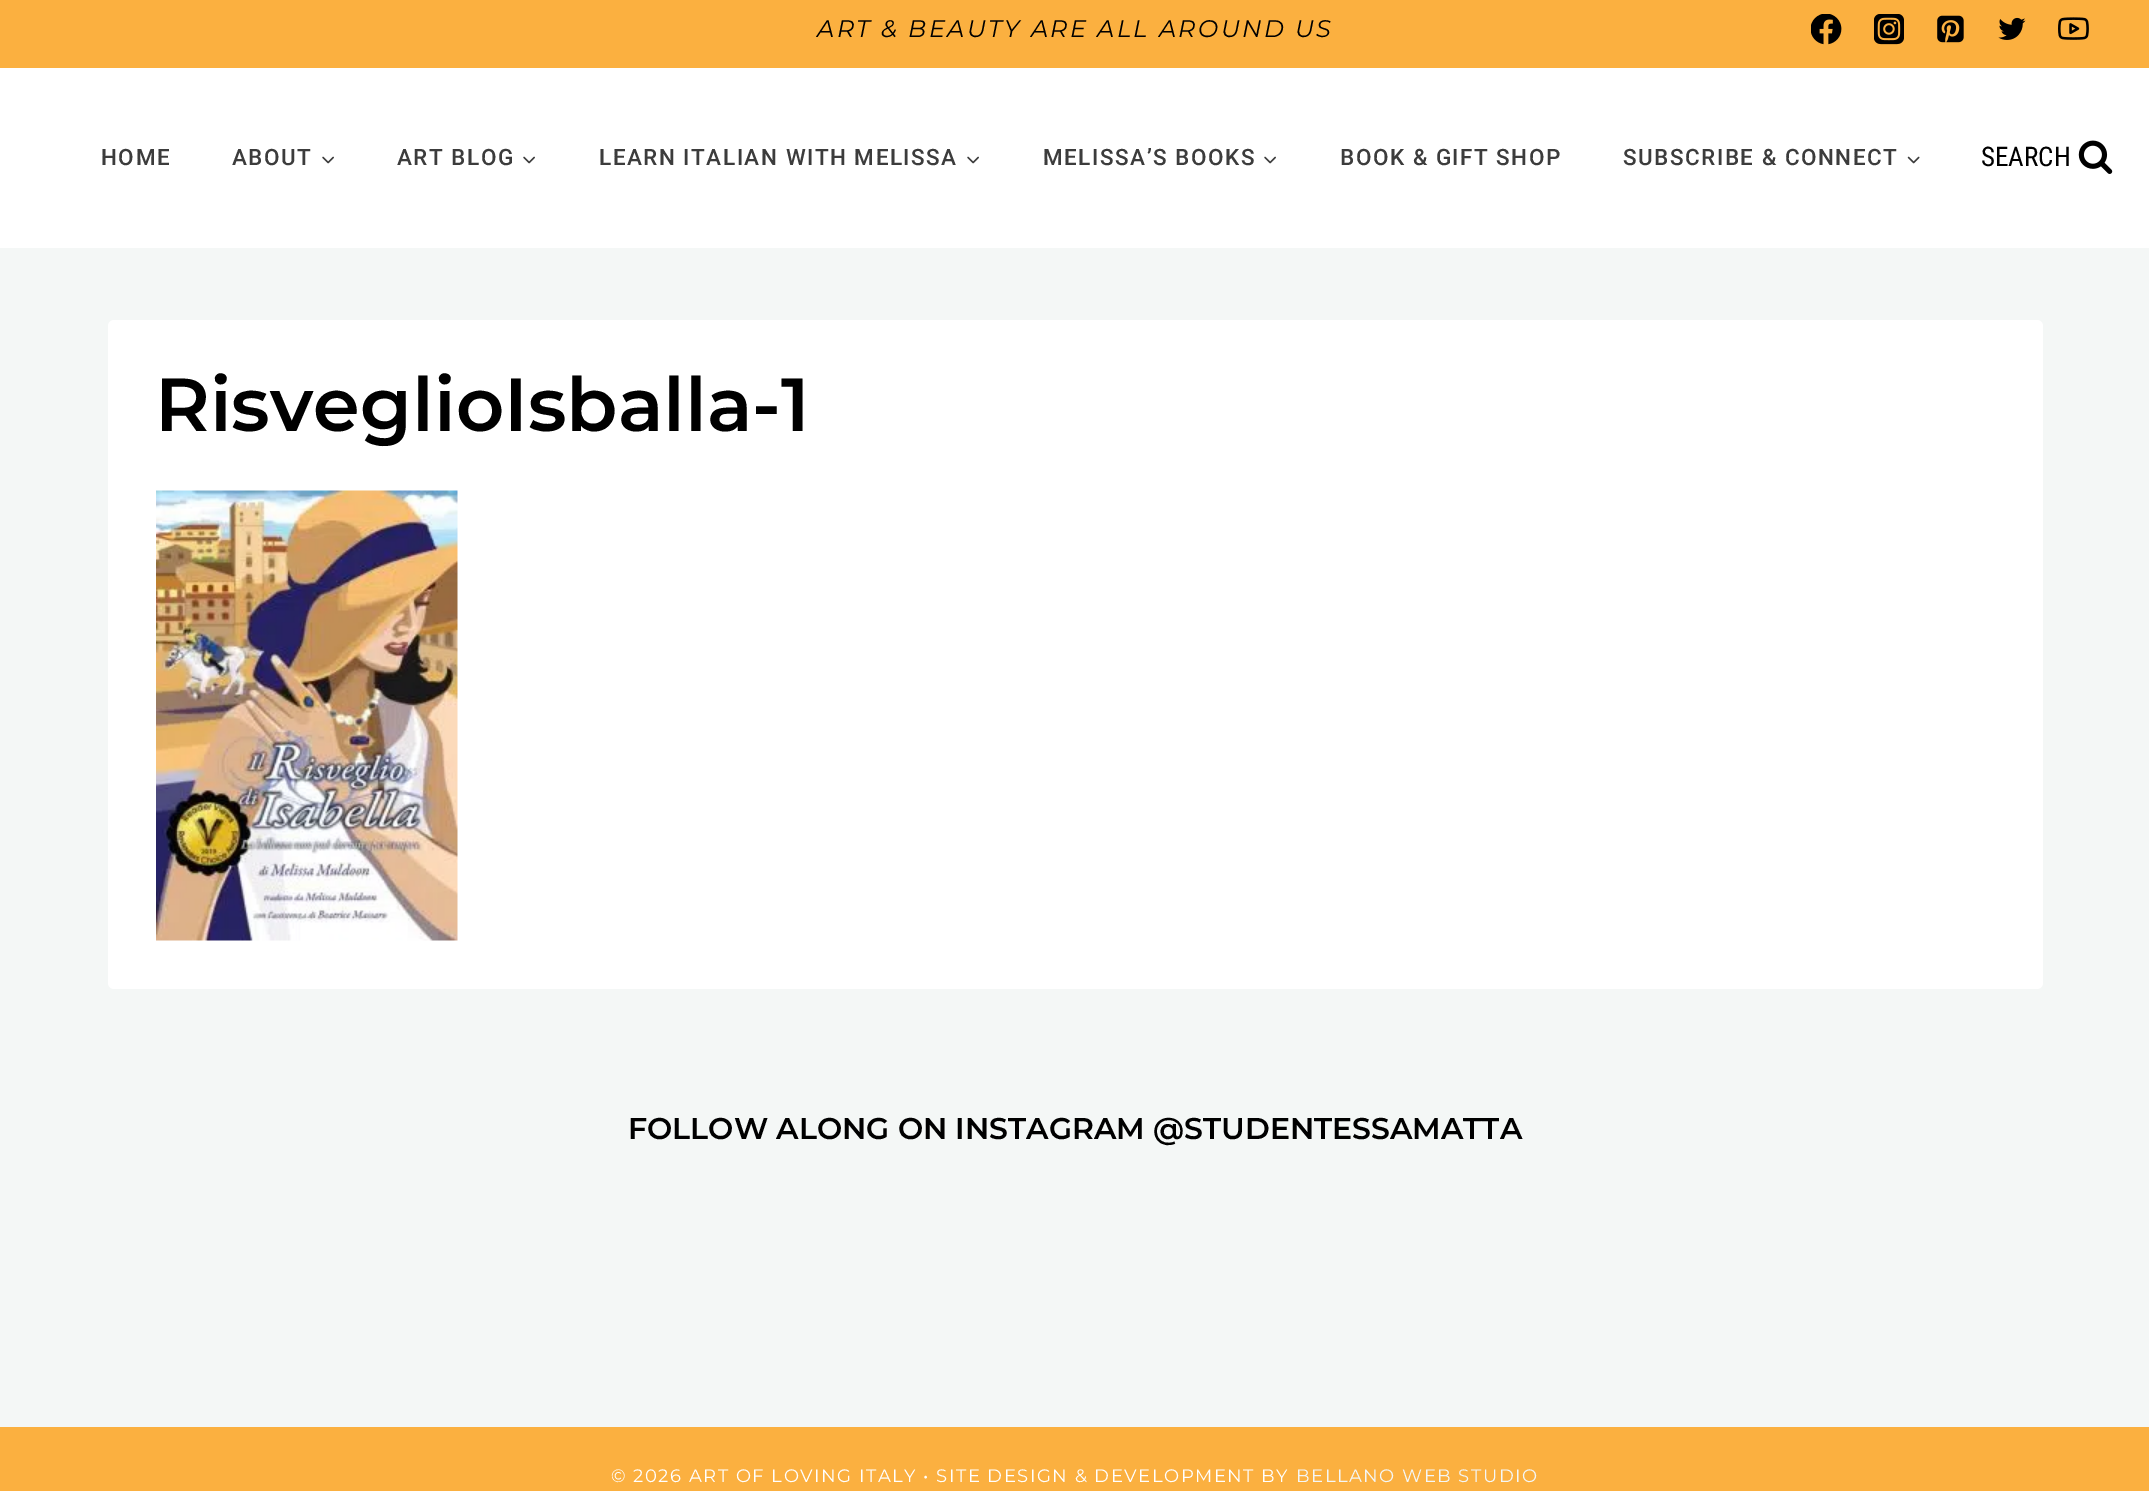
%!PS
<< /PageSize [2149 1491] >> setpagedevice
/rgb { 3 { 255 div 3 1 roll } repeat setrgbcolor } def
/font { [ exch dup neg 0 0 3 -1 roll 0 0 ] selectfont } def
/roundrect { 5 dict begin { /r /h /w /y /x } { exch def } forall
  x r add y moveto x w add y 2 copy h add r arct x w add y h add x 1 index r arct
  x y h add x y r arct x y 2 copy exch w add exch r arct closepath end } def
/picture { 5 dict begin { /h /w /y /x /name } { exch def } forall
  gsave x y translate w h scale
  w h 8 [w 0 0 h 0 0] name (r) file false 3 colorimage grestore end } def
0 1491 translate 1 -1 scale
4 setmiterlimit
244 247 246 rgb
0 0 2149 1491 rectfill
255 255 255 rgb
0 68 2149 180 rectfill
251 176 64 rgb
0 0 2149 68 rectfill
(img/1.rgb) 1811 14 31 31 picture
(img/2.rgb) 1874 14 30 31 picture
(img/3.rgb) 1937 15 27 28 picture
(img/4.rgb) 1998 17 28 23 picture
(img/5.rgb) 2058 17 31 23 picture
(img/6.rgb) 322 156 12 8 picture
(img/6.rgb) 523 156 12 8 picture
(img/6.rgb) 967 156 12 8 picture
(img/6.rgb) 1264 156 12 8 picture
(img/7.rgb) 1907 156 13 8 picture
(img/8.rgb) 2078 140 35 34 picture
255 255 255 rgb
108 320 1935 669 6 roundrect fill
(img/9.rgb) 156 490 302 451 picture
251 176 64 rgb
0 1427 2149 64 rectfill
/Montserrat-Italic 24 font
0 0 0 rgb
817 37 moveto 2.4 0 (ART & BEAUTY ARE ALL AROUND US) ashow
/Roboto-Medium 22.5 font
60 60 60 rgb
101 165 moveto 1.5 0 (HOME) ashow
232 165 moveto 1.5 0 (ABOUT) ashow
397 165 moveto 1.5 0 (ART BLOG) ashow
599 165 moveto 1.5 0 (LEARN ITALIAN WITH MELISSA) ashow
1043 165 moveto 1.5 0 (MELISSA’S BOOKS) ashow
1340 165 moveto 1.5 0 (BOOK & GIFT SHOP) ashow
1623 165 moveto 1.5 0 (SUBSCRIBE & CONNECT) ashow
/RobotoCondensed-Regular 27 font
0 0 0 rgb
1981 166 moveto (SEARCH) show
/Montserrat-SemiBold 75 font
155 431 moveto (RisveglioIsballa-1) show
/Montserrat-SemiBold 30 font
628 1139 moveto (FOLLOW ALONG ON INSTAGRAM @STUDENTESSAMATTA) show
/Montserrat-Regular 18 font
255 255 255 rgb
611 1482 moveto 1.5 0 (© 2026 ART OF LOVING ITALY • SITE DESIGN & DEVELOPMENT BY) ashow
244 247 246 rgb
1296 1482 moveto 1.5 0 (BELLANO WEB STUDIO) ashow
showpage
